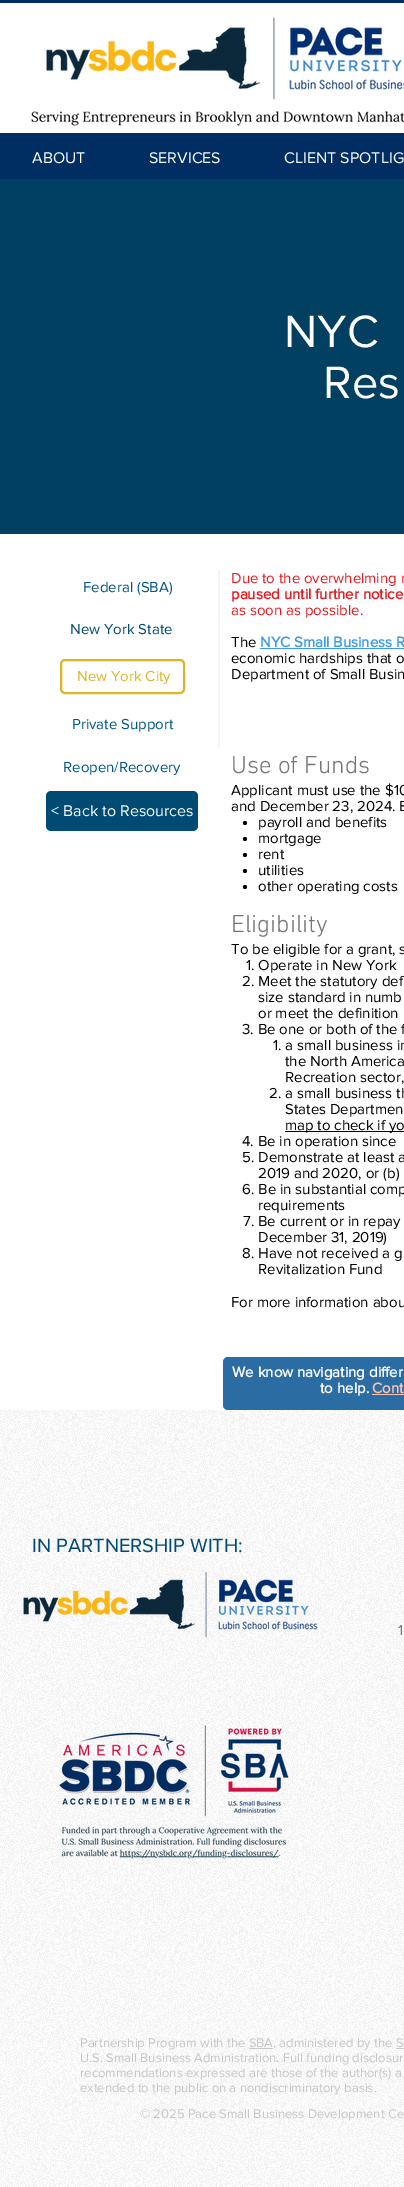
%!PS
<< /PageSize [404 2187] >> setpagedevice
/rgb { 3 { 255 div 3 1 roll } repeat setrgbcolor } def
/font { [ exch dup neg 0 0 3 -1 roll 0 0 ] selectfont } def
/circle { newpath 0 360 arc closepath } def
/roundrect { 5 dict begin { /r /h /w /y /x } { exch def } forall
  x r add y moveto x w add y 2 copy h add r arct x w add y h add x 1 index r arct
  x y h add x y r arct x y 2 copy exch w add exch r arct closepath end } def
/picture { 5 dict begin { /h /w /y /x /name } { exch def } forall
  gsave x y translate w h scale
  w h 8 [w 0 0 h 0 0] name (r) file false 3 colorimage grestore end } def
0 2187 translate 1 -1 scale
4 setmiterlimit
255 255 255 rgb
0 0 404 2187 rectfill
0 45 98 rgb
0 0 404 3 rectfill
(img/1.rgb) 31 17 373 109 picture
[
  [0 133 404 46 0 45 98]
  [0 179 404 355 2 64 97]
  [218 570 2 178 244 243 243]
  [260 648 144 1 61 155 233]
] { aload pop rgb rectfill } forall
222 180 40 rgb
2 setlinewidth
61 660 123 33 4 roundrect stroke
0 0 0 rgb
245 823 2 circle fill
245 839 2 circle fill
245 855 2 circle fill
245 871 2 circle fill
245 887 2 circle fill
285 1131 119 1 rectfill
0 75 115 rgb
46 791 152 40 5 roundrect fill
43 108 163 rgb
224 1358 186 51 4 roundrect gsave fill grestore
stroke
254 196 178 rgb
372 1394 32 1 rectfill
(img/2.rgb) 0 1410 404 777 picture
(img/3.rgb) 23 1571 295 67 picture
(img/4.rgb) 59 1725 230 134 picture
199 199 199 rgb
249 2048 24 1 rectfill
396 2048 8 1 rectfill
/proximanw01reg-Regular 16 font
255 255 255 rgb
[
  [(ABOUT) 32 163]
  [(SERVICES) 149 163]
  [(CLIENT SPOTLIG) 284 163]
] { aload pop moveto show } forall
/proximanw01reg-Regular 47 font
284 347 moveto (NYC) show
323 398 moveto (Res) show
/proximanw01reg-Regular 15 font
1 87 133 rgb
83 592 moveto (Federal \(SBA\)) show
226 28 33 rgb
231 583 moveto (Due to the overwhelming r) show
/proximanw01reg-Bold 15 font
231 599 moveto (paused until further notice) show
/proximanw01reg-Regular 15 font
231 615 moveto (as soon as possible.) show
0 0 0 rgb
231 647 moveto (The) show
/proximanw01reg-Bold 15 font
61 155 233 rgb
260 647 moveto (NYC Small Business R) show
/proximanw01reg-Regular 15 font
0 0 0 rgb
231 663 moveto (economic hardships that o) show
231 679 moveto (Department of Small Busin) show
0 75 115 rgb
70 634 moveto (New York State) show
222 180 40 rgb
77 681 moveto (New York City) show
1 87 133 rgb
72 729 moveto (Private Support) show
63 772 moveto (Reopen/Recovery) show
/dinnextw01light-Light 25 font
117 117 117 rgb
231 773 moveto (Use of Funds) show
/proximanw01reg-Regular 15 font
0 0 0 rgb
[
  [(Applicant must use the $10) 231 795]
  [(and December 23, 2024. E) 231 811]
  [(payroll and benefits) 258 827]
  [(mortgage) 258 843]
  [(rent) 258 859]
  [(utilities) 258 875]
  [(other operating costs) 258 891]
] { aload pop moveto show } forall
/dinnextw01light-Light 25 font
117 117 117 rgb
231 932 moveto (Eligibility) show
/proximanw01reg-Regular 15 font
0 0 0 rgb
[
  [(To be eligible for a grant, s) 231 954]
  [(1. Operate in New York) 246 970]
  [(2. Meet the statutory def) 242 986]
  [(size standard in numb) 258 1002]
  [(or meet the definition) 258 1018]
  [(3. Be one or both of the f) 242 1034]
  [(1. a small business in) 273 1050]
  [(the North America) 285 1066]
  [(Recreation sector,) 285 1082]
  [(2. a small business th) 269 1098]
  [(States Departmen) 285 1114]
  [(map to check if yo) 285 1130]
  [(4. Be in operation since) 242 1146]
  [(5. Demonstrate at least a) 242 1162]
  [(2019 and 2020, or \(b\)) 258 1178]
  [(6. Be in substantial comp) 242 1194]
  [(requirements) 258 1210]
  [(7. Be current or in repay) 243 1226]
  [(December 31, 2019\)) 258 1242]
  [(8. Have not received a g) 242 1258]
  [(Revitalization Fund) 258 1274]
  [(For more information abou) 231 1307]
] { aload pop moveto show } forall
/proximanw01reg-Regular 16 font
255 255 255 rgb
51 816 moveto (< Back to Resources) show
/proximanw01reg-Bold 15 font
232 1377 moveto (We know navigating differ) show
320 1393 moveto (to help.) show
254 196 178 rgb
372 1393 moveto (Cont) show
/proximanw01reg-Regular 20 font
0 75 115 rgb
32 1552 moveto (IN PARTNERSHIP WITH:) show
/proximanw01reg-Regular 15 font
117 117 117 rgb
398 1635 moveto (1) show
/proximanw01reg-Regular 13 font
199 199 199 rgb
[
  [(Partnership Program with the SBA, administered by the S) 80 2047]
  [(U.S. Small Business Administration. Full funding disclosur) 80 2062]
  [(recommendations expressed are those of the author\(s\) a) 80 2077]
  [(extended to the public on a nondiscriminatory basis.) 80 2092]
  [(© 2025 Pace Small Business Development Ce) 140 2118]
] { aload pop moveto show } forall
showpage
